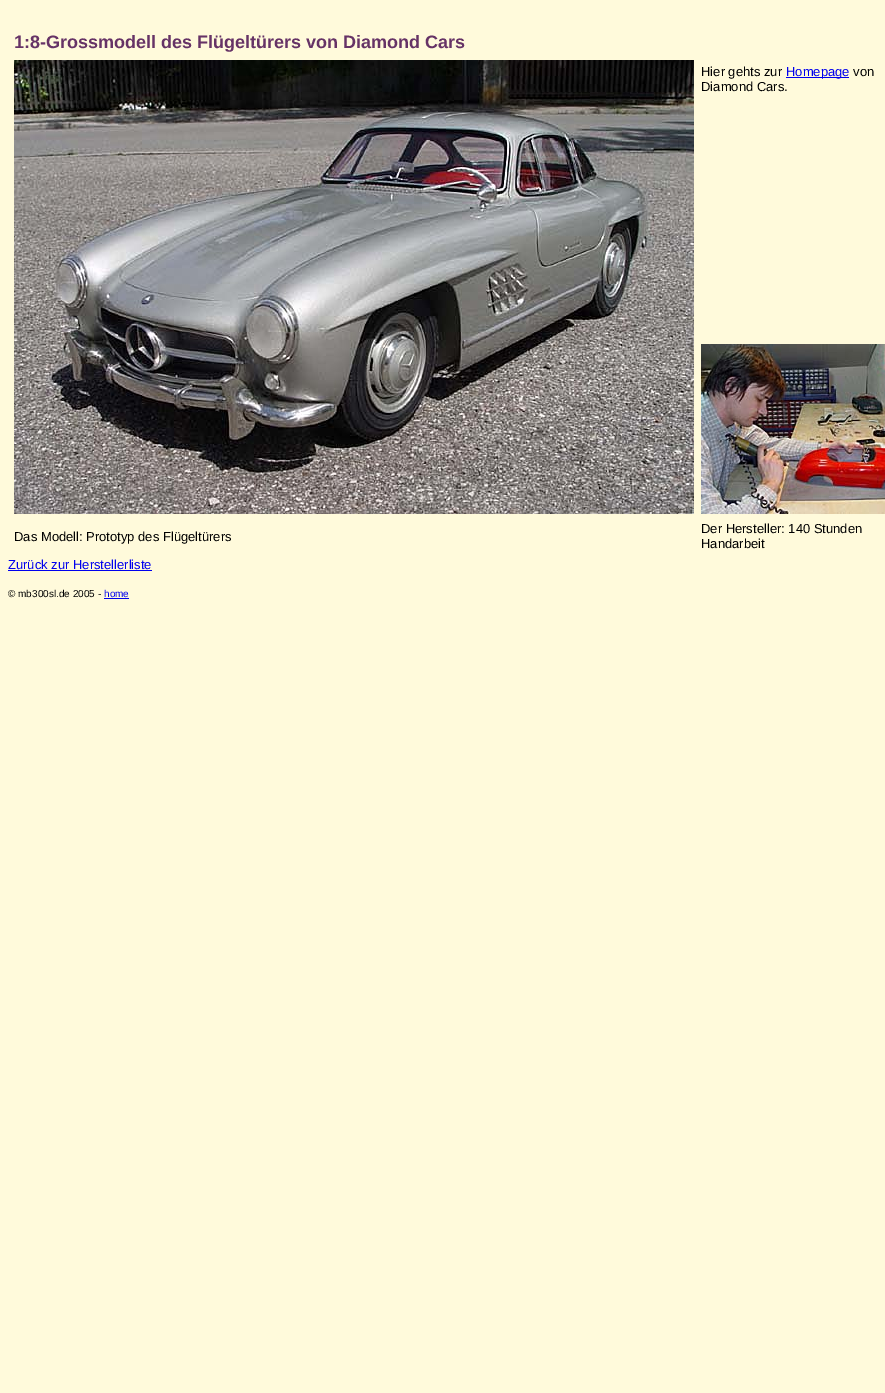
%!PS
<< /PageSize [885 1393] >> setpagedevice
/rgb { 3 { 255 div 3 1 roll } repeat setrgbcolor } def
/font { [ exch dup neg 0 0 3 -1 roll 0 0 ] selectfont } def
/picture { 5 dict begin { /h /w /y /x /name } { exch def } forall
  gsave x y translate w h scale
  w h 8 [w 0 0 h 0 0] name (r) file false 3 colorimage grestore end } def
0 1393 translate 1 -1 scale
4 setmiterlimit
255 250 219 rgb
0 0 885 1393 rectfill
(img/1.rgb) 14 60 680 454 picture
0 0 238 rgb
786 77 63 1 rectfill
(img/2.rgb) 701 344 184 170 picture
8 570 144 1 rectfill
104 598 25 1 rectfill
/LiberationSans-Bold 18 font
102 51 102 rgb
14 48 moveto (1:8-Grossmodell des Flügeltürers von Diamond Cars) show
/LiberationSans-Regular 13 font
0 0 0 rgb
701 76 moveto (Hier gehts zur) show
0 0 238 rgb
786 76 moveto (Homepage) show
0 0 0 rgb
[
  [(von) 853 76]
  [(Diamond Cars.) 701 91]
  [(Das Modell: Prototyp des Flügeltürers) 14 541]
  [(Der Hersteller: 140 Stunden) 701 533]
  [(Handarbeit) 701 548]
] { aload pop moveto show } forall
0 0 238 rgb
8 569 moveto (Zurück zur Herstellerliste) show
/LiberationSans-Regular 10 font
0 0 0 rgb
8 597 moveto (© mb300sl.de 2005 -) show
0 0 238 rgb
104 597 moveto (home) show
showpage
